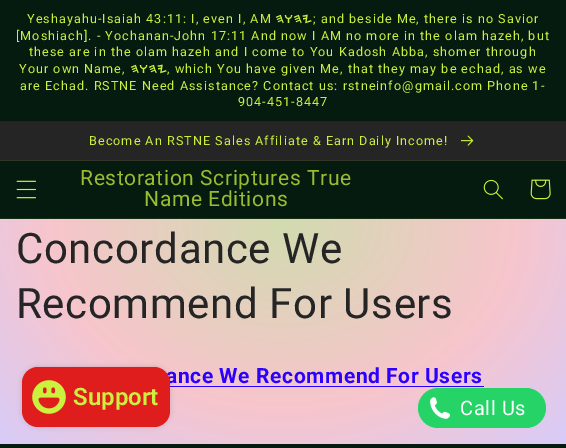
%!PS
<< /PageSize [566 448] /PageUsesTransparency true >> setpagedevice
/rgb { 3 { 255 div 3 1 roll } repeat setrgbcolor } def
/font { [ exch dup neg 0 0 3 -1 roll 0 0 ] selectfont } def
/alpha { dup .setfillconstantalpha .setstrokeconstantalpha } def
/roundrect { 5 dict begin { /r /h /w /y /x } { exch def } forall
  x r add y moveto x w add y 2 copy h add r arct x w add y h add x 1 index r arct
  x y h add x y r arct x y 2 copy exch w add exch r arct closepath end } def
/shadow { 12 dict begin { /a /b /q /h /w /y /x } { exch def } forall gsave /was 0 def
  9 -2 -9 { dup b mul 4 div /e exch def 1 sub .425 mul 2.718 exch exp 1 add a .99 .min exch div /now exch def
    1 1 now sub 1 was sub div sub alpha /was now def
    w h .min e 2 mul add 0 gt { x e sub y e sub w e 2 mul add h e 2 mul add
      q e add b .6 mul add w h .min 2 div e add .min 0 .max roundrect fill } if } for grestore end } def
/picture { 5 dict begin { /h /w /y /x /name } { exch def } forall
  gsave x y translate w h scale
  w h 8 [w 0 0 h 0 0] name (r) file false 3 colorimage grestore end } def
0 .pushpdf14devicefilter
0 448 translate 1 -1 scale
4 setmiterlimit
255 255 255 rgb
0 0 566 448 rectfill
gsave 0 219 moveto 566 219 lineto 566 444 lineto 0 444 lineto closepath clip newpath 283 224 translate 400 317 scale
<< /ShadingType 3 /ColorSpace /DeviceRGB /Coords [0 0 0 0 0 1] /Extend [true true] /Function << /FunctionType 3 /Domain [0 1] /Functions [<< /FunctionType 2 /Domain [0 1] /C0 [0.824 0.859 0.69] /C1 [0.969 0.773 0.8] /N 1 >> << /FunctionType 2 /Domain [0 1] /C0 [0.969 0.773 0.8] /C1 [0.843 0.8 0.98] /N 1 >>] /Bounds [0.58] /Encode [0 1 0 1] >> >> shfill grestore
[
  [0 0 566 121 6 27 15]
  [0 121 566 1 22 44 19]
  [0 122 566 38 37 37 37]
  [0 160 566 1 50 53 39]
] { aload pop rgb rectfill } forall
(img/1.rgb) 461 135 13 11 picture
6 27 15 rgb
0 161 566 57 rectfill
22 44 19 rgb
0 218 566 1 rectfill
(img/2.rgb) 16 180 20 19 picture
(img/3.rgb) 483 179 20 21 picture
(img/4.rgb) 530 179 21 21 picture
43 0 255 rgb
170 386 314 1 rectfill
0 0 0 rgb
22 367 148 60 16 2.5 0.15 shadow
37 211 102 rgb
418 388 128 40 20 roundrect fill
(img/6.rgb) 430 397 20 22 picture
6 27 15 rgb
0 444 566 4 rectfill
/Roboto-Regular 12.6 font
203 241 62 rgb
27 23 moveto 1.05 0 (Yeshayahu-Isaiah 43:11: I, even I, AM) ashow
/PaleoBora-Regular 12.6 font
275 23 moveto 1.05 0 (HWHY) ashow
/Roboto-Regular 12.6 font
313 23 moveto 1.05 0 (; and beside Me, there is no Savior) ashow
16 40 moveto 1.05 0 ([Moshiach]. - Yochanan-John 17:11 And now I AM no more in the olam hazeh, but) ashow
29 56 moveto 1.05 0 (these are in the olam hazeh and I come to You Kadosh Abba, shomer through) ashow
19 73 moveto 1.05 0 (Your own Name,) ashow
/PaleoBora-Regular 12.6 font
130 73 moveto 1.05 0 (HWHY) ashow
/Roboto-Regular 12.6 font
167 73 moveto 1.05 0 (, which You have given Me, that they may be echad, as we) ashow
20 90 moveto 1.05 0 (are Echad. RSTNE Need Assistance? Contact us: rstneinfo@gmail.com Phone 1-) ashow
238 106 moveto 1.05 0 (904-451-8447) ashow
89 145 moveto 1.05 0 (Become An RSTNE Sales Affiliate & Earn Daily Income!) ashow
/Roboto-Regular 21 font
154 188 50 rgb
80 185 moveto 0.6 0 (Restoration Scriptures True) ashow
144 206 moveto 0.6 0 (Name Editions) ashow
/Roboto-Regular 42 font
37 37 37 rgb
16 263 moveto 0.6 0 (Concordance We) ashow
16 318 moveto 0.6 0 (Recommend For Users) ashow
/Roboto-Bold 21 font
43 0 255 rgb
166 383 moveto 0.6 0 (ance We Recommend For Users) ashow
223 29 29 rgb
22 367 148 60 16 roundrect fill
(img/5.rgb) 32 380 34 34 picture
/Roboto-SemiBold 24 font
203 241 62 rgb
73 405 moveto (Support) show
/Roboto-Regular 20 font
255 255 255 rgb
460 415 moveto 0.6 0 (Call Us) ashow
.poppdf14devicefilter showpage
